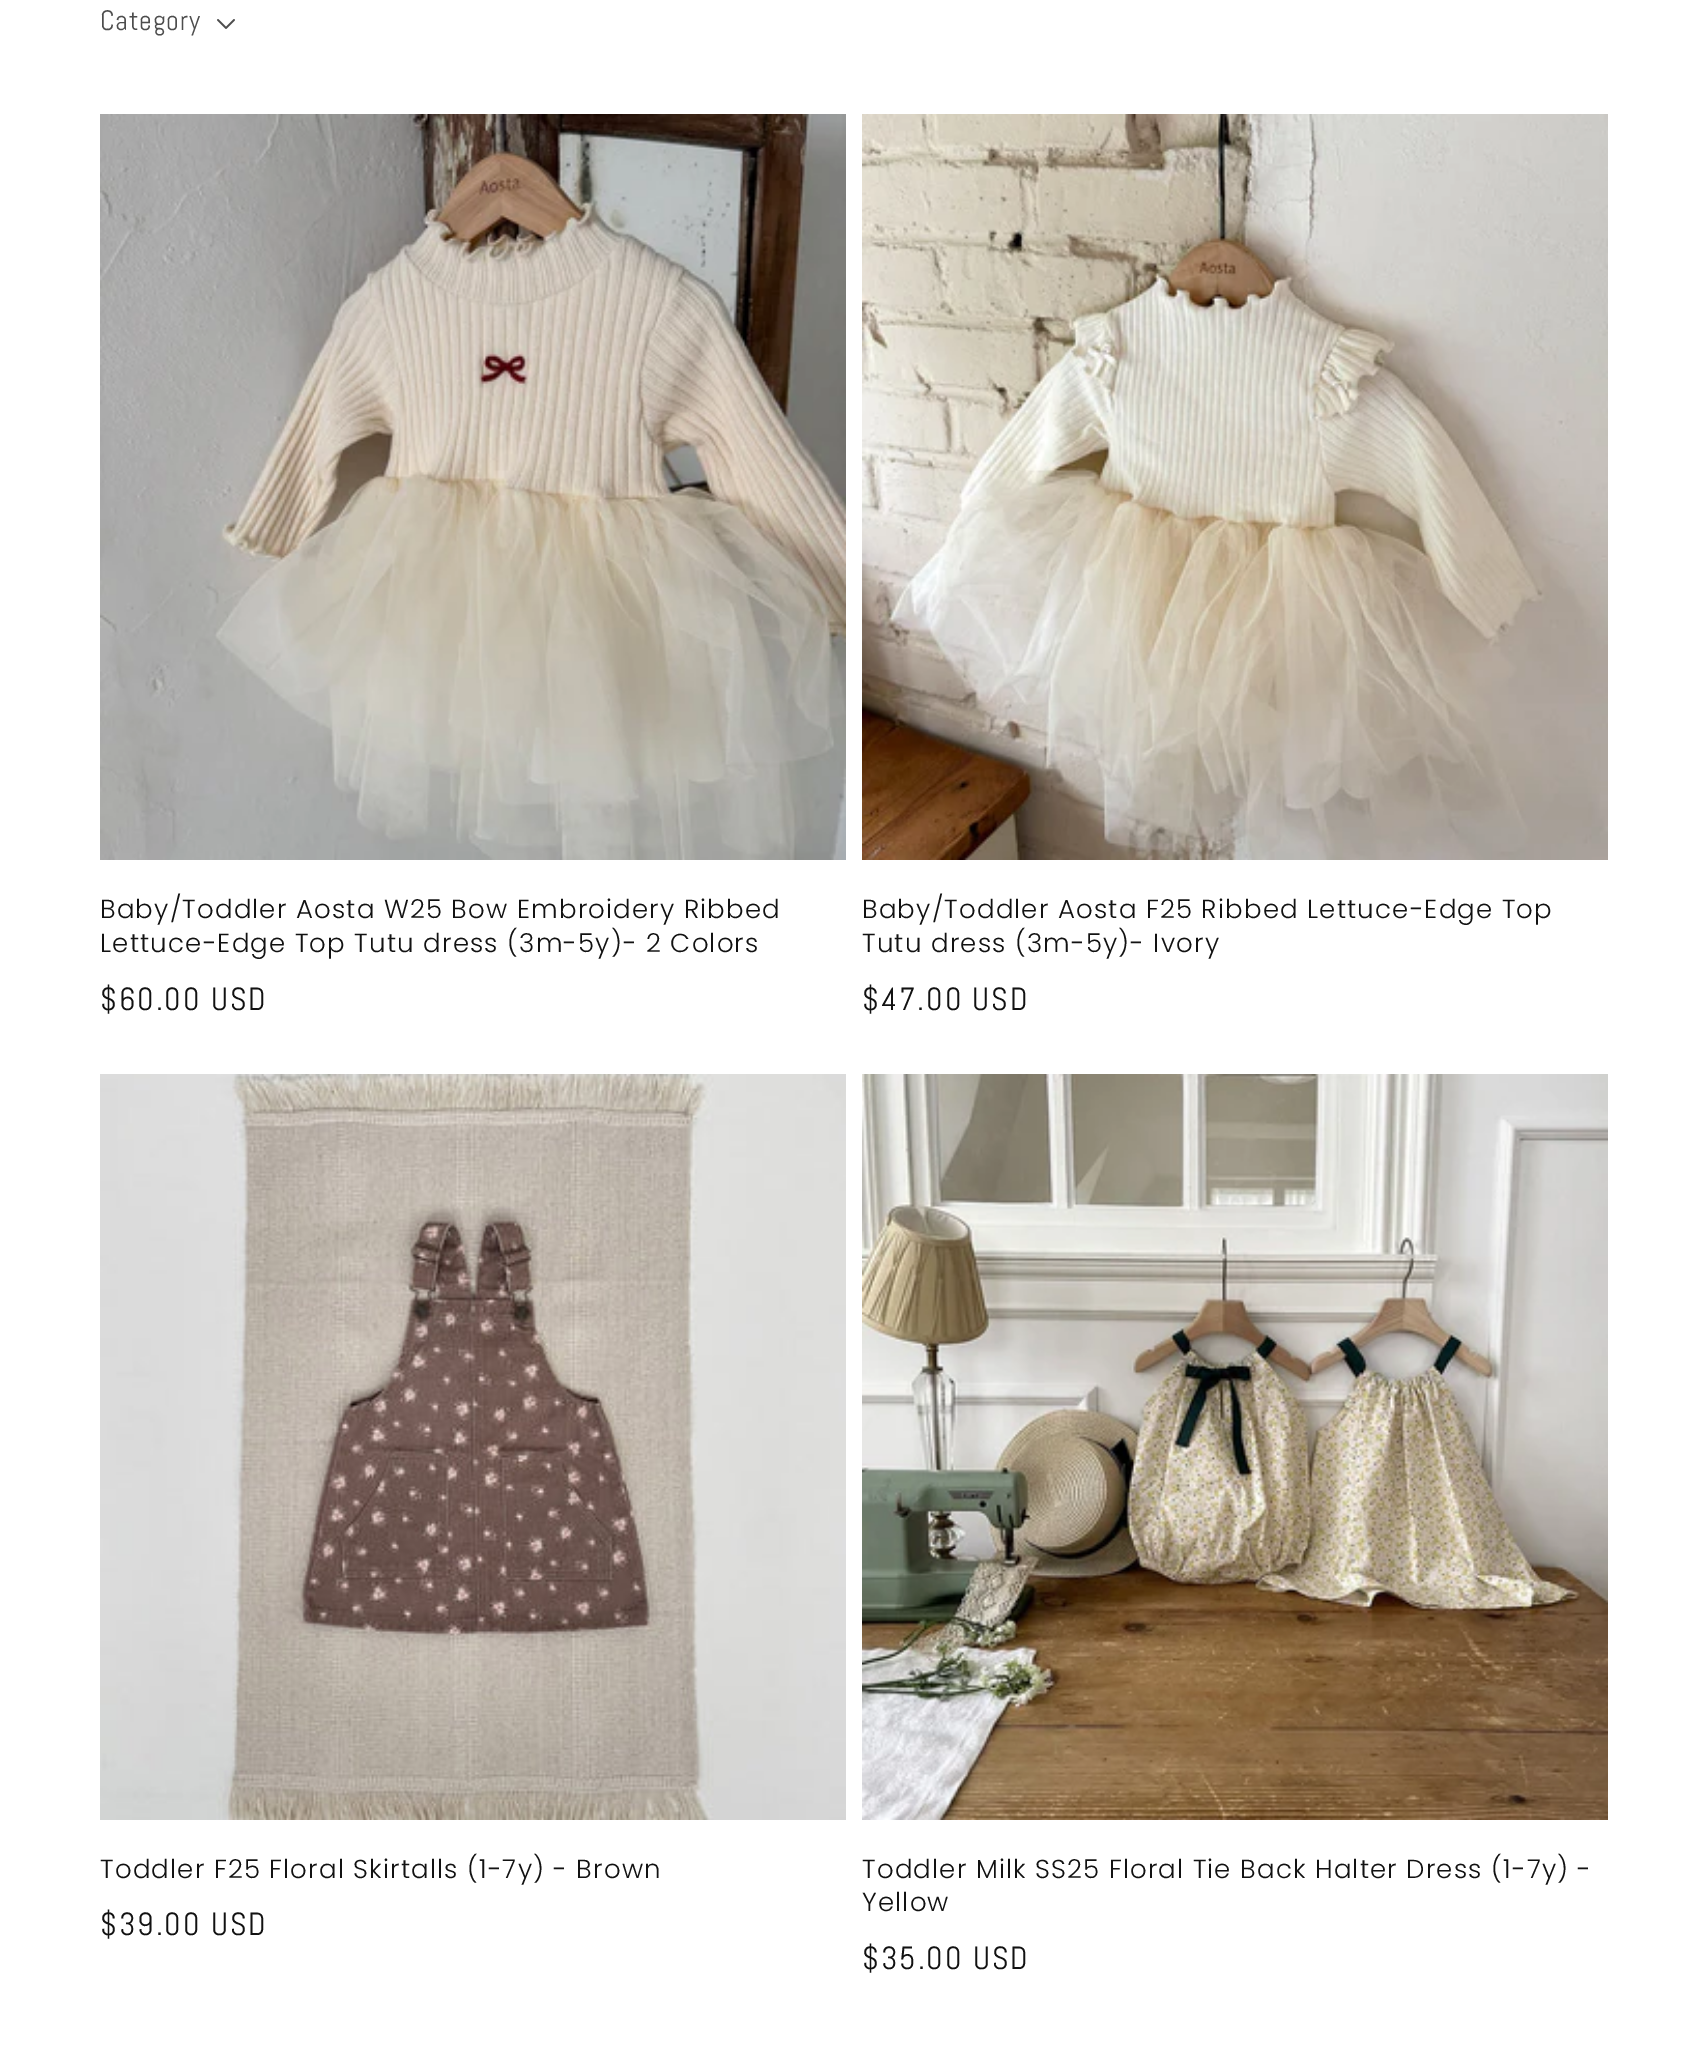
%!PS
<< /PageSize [1707 2065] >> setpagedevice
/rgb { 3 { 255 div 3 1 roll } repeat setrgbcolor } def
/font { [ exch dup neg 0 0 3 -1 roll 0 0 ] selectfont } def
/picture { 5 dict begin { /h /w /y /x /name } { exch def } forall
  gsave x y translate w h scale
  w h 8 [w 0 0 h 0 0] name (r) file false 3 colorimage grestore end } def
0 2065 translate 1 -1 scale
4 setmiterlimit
255 255 255 rgb
0 0 1707 2065 rectfill
(img/1.rgb) 217 19 18 10 picture
(img/2.rgb) 100 114 746 746 picture
(img/3.rgb) 862 114 746 746 picture
(img/4.rgb) 100 1074 746 746 picture
(img/5.rgb) 862 1074 746 746 picture
/Abel-Regular 28 font
77 77 77 rgb
100 30 moveto 0.75 0 (Category) ashow
/Poppins-Light 26 font
18 18 18 rgb
100 918 moveto 1.2 0 (Baby/Toddler Aosta W25 Bow Embroidery Ribbed) ashow
100 952 moveto 1.2 0 (Lettuce-Edge Top Tutu dress \(3m-5y\)- 2 Colors) ashow
/Abel-Regular 32 font
100 1010 moveto 2 0 ($60.00 USD) ashow
/Poppins-Light 26 font
862 918 moveto 1.2 0 (Baby/Toddler Aosta F25 Ribbed Lettuce-Edge Top) ashow
862 952 moveto 1.2 0 (Tutu dress \(3m-5y\)- Ivory) ashow
/Abel-Regular 32 font
862 1010 moveto 2 0 ($47.00 USD) ashow
/Poppins-Light 26 font
100 1878 moveto 1.2 0 (Toddler F25 Floral Skirtalls \(1-7y\) - Brown) ashow
/Abel-Regular 32 font
100 1935 moveto 2 0 ($39.00 USD) ashow
/Poppins-Light 26 font
862 1878 moveto 1.2 0 (Toddler Milk SS25 Floral Tie Back Halter Dress \(1-7y\) -) ashow
862 1911 moveto 1.2 0 (Yellow) ashow
/Abel-Regular 32 font
862 1969 moveto 2 0 ($35.00 USD) ashow
showpage
